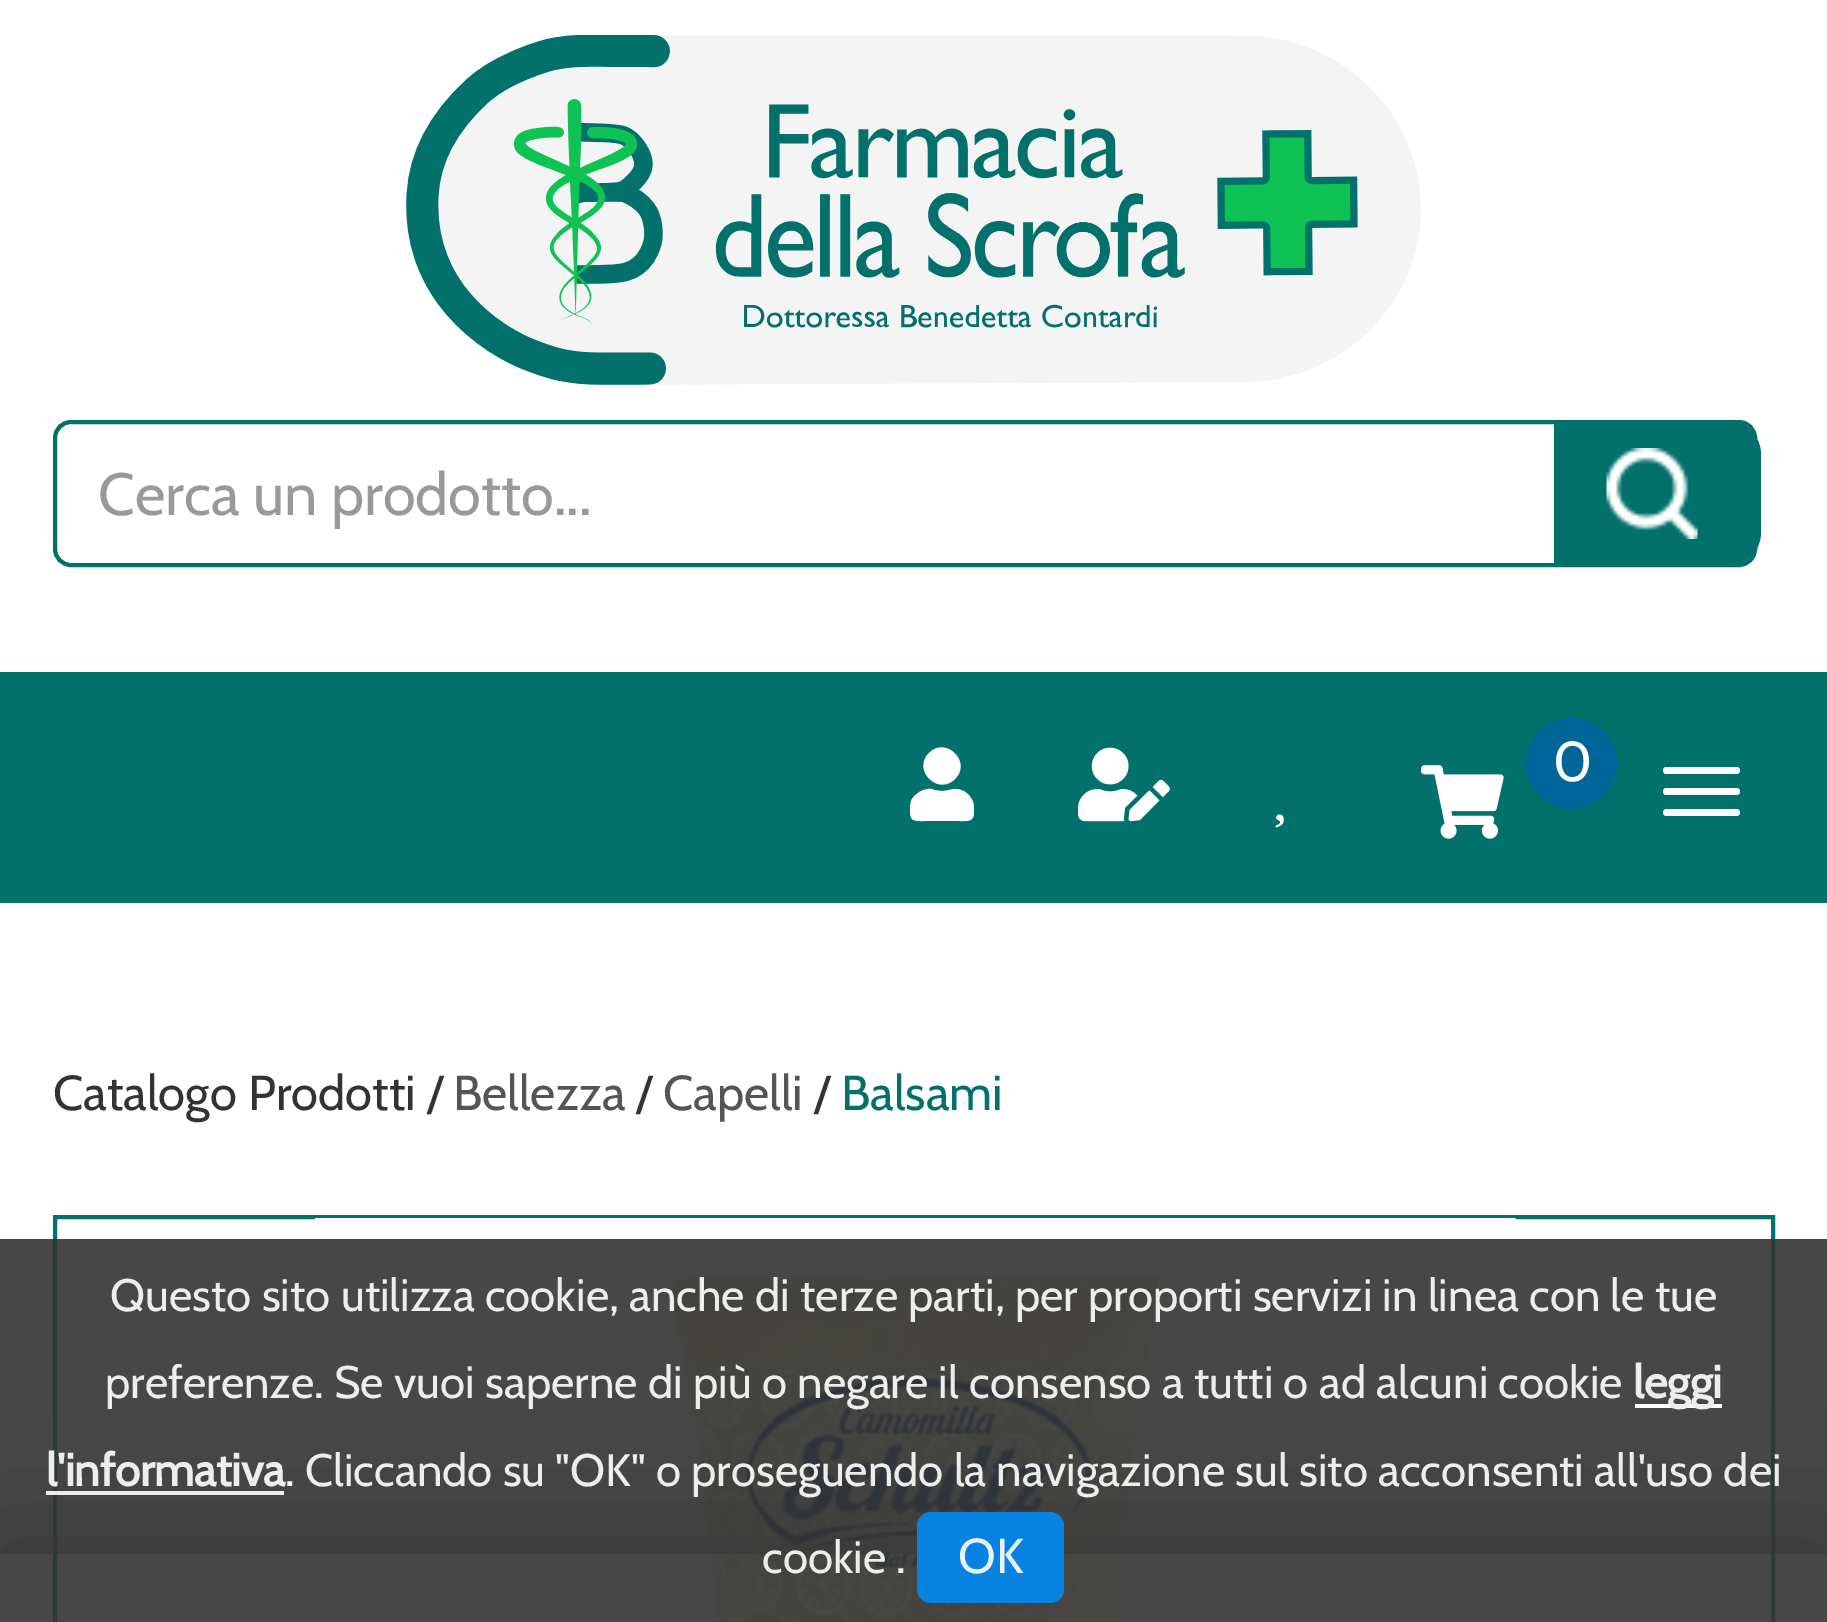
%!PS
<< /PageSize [1827 1622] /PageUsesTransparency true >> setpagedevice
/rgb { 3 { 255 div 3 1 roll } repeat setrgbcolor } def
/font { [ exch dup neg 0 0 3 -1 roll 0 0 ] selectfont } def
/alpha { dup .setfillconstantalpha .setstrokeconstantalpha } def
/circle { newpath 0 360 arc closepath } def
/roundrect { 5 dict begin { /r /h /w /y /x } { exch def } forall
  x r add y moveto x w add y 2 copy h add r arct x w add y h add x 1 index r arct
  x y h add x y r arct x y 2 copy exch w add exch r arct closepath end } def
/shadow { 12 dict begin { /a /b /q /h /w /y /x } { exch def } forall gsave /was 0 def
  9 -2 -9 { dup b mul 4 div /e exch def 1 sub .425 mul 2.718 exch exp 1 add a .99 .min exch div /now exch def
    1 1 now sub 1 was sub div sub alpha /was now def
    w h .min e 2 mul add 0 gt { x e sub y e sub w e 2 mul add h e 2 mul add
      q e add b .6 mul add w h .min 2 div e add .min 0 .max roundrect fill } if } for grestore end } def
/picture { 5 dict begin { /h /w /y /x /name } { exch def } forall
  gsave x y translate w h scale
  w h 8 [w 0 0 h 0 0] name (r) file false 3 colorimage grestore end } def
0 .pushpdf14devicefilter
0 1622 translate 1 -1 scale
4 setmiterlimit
255 255 255 rgb
0 0 1827 1622 rectfill
(img/1.rgb) 406 35 1015 350 picture
2 113 107 rgb
4 setlinewidth
55 422 1700 143 16 roundrect stroke
1554 420 moveto 1726 420 lineto 1745.5 420 1761 435.5 1761 455 curveto 1761 532 lineto 1761 551.5 1745.5 567 1726 567 curveto 1554 567 lineto closepath fill
(img/2.rgb) 1606 448 92 91 picture
0 672 1827 231 rectfill
255 255 255 rgb
955 779 moveto 938 796 912 770 929 753 curveto 946 736 972 762 955 779 curveto closepath 955 789 moveto 962 789 967 792 971 798 curveto 974 802 974 806 974 811 curveto 974 822 969 821 959 821 curveto 925 821 lineto 915 821 910 822 910 811 curveto 910 807 910 803 912 799 curveto 916 793 924 788 932 789 curveto 934 790 lineto 942 791 lineto 947 791 951 789 955 789 curveto closepath fill
(img/3.rgb) 1078 747 92 75 picture
(img/4.rgb) 1421 765 83 74 picture
0 102 153 rgb
1571.5 763.5 45.5 circle fill
255 255 255 rgb
1663 767 77 7 3.5 roundrect fill
1663 788 77 7 3.5 roundrect fill
1663 809 77 7 3.5 roundrect fill
(img/5.rgb) 1275 814 9 14 picture
2 113 107 rgb
55 1217 1718 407 rectstroke
(img/6.rgb) 315 1218 1201 404 picture
gsave
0 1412 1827 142 rectclip
68 68 68 rgb
0 1554 1827 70 0 70 1 shadow
grestore
0.9 alpha
[
  [0 1239 1827 383 51 51 51]
] { aload pop rgb rectfill } forall
1 alpha
[
  [1635 1404 87 4 255 255 255]
] { aload pop rgb rectfill } forall
0.9 alpha
[
  [46 1491 238 4 255 255 255]
] { aload pop rgb rectfill } forall
0 137 242 rgb
917 1512 147 91 14 roundrect fill
gsave
98 459 1614 70 rectclip
/Cabin-Regular 59.5 font
1 alpha
153 153 153 rgb
98 515 moveto (Cerca un prodotto...) show
grestore
/Cabin-Regular 56 font
1 alpha
255 255 255 rgb
1553 781 moveto (0) show
/Cabin-Regular 49 font
51 51 51 rgb
53 1110 moveto (Catalogo Prodotti /) show
85 85 85 rgb
453 1110 moveto (Bellezza) show
51 51 51 rgb
636 1110 moveto (/) show
85 85 85 rgb
663 1110 moveto (Capelli) show
51 51 51 rgb
814 1110 moveto (/) show
2 113 107 rgb
841 1110 moveto (Balsami) show
/Cabin-Regular 45.5 font
237 237 236 rgb
110 1311 moveto (Questo sito utilizza cookie, anche di terze parti, per proporti servizi in linea con le tue) show
105 1398 moveto (preferenze. Se vuoi saperne di più o negare il consenso a tutti o ad alcuni cookie) show
/Cabin-Bold 45.5 font
1633 1398 moveto (leggi) show
46 1486 moveto (l'informativa) show
/Cabin-Regular 45.5 font
255 255 255 rgb
285 1486 moveto (.) show
237 237 236 rgb
305 1486 moveto (Cliccando su "OK" o proseguendo la navigazione sul sito acconsenti all'uso dei) show
762 1573 moveto (cookie .) show
/Cabin-Regular 49 font
230 242 252 rgb
958 1573 moveto (OK) show
.poppdf14devicefilter showpage
